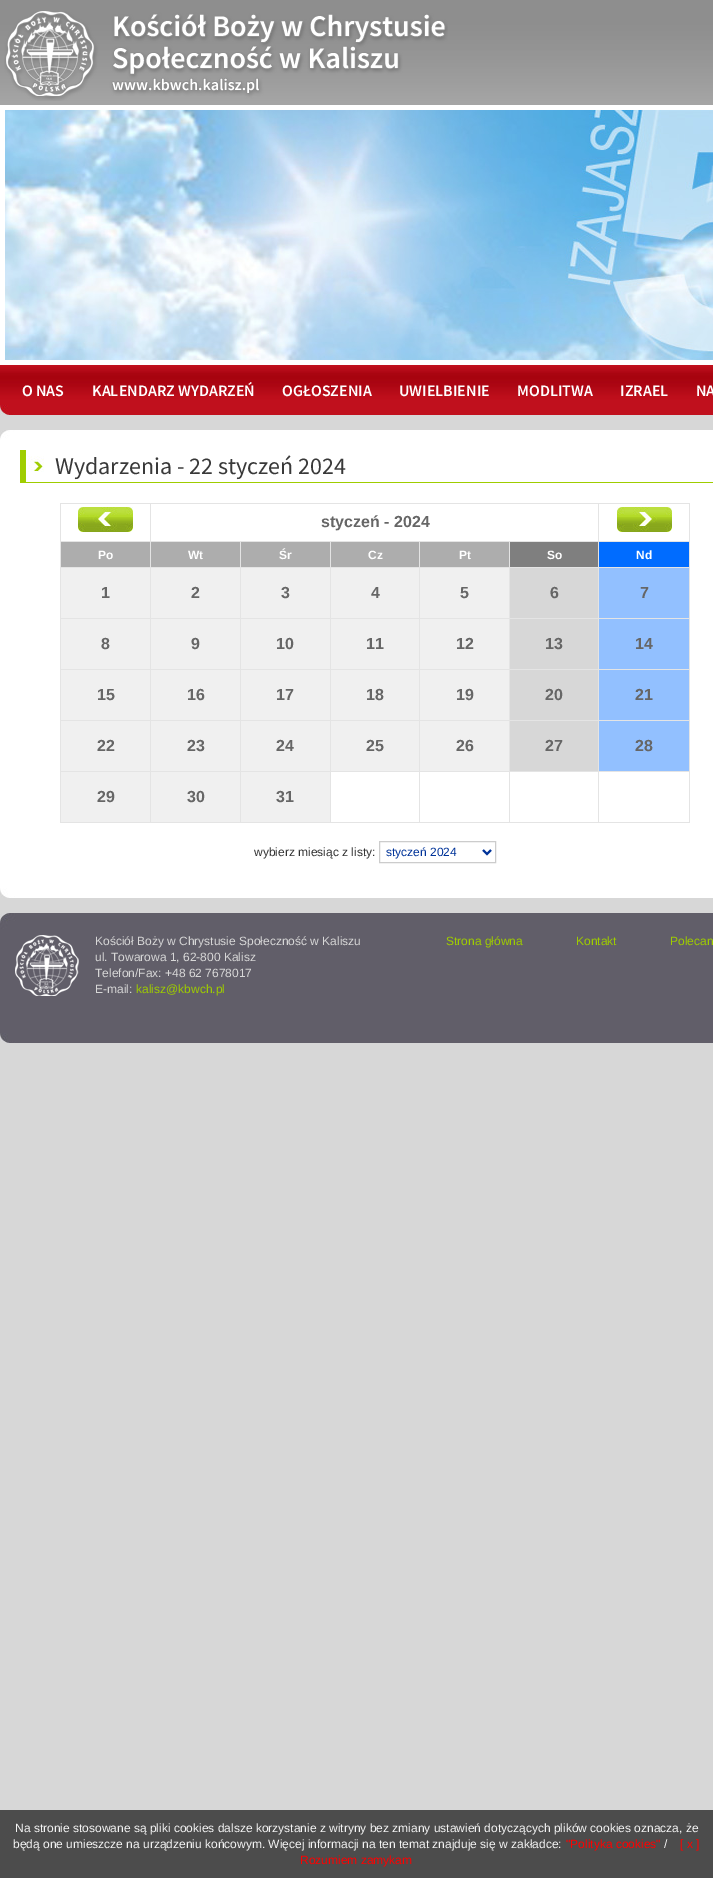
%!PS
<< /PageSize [713 1878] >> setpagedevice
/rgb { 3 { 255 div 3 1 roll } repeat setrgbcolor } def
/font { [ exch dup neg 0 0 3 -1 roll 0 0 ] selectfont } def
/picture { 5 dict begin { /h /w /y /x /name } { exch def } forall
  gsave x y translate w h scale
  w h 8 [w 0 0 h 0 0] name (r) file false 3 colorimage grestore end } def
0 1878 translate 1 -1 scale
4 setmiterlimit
215 215 215 rgb
0 0 713 1878 rectfill
(img/1.rgb) 0 0 713 232 picture
(img/2.rgb) 4 11 444 90 picture
255 255 255 rgb
5 setlinewidth
2.5 107.5 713 255 rectstroke
(img/3.rgb) 5 110 708 250 picture
(img/4.rgb) 0 365 713 50 picture
(img/5.rgb) 0 430 713 10 picture
0 440 713 448 rectfill
(img/6.rgb) 20 450 24 32 picture
[
  [20 482 693 1 159 205 0]
  [60 503 630 320 228 228 228]
  [61 504 89 37 255 255 255]
] { aload pop rgb rectfill } forall
(img/7.rgb) 78 507 55 25 picture
151 504 447 37 rectfill
599 504 90 37 rectfill
(img/8.rgb) 617 507 55 25 picture
[
  [61 542 89 25 173 173 173]
  [151 542 89 25 173 173 173]
  [241 542 89 25 173 173 173]
  [331 542 88 25 173 173 173]
  [420 542 89 25 173 173 173]
  [510 542 88 25 127 127 127]
  [599 542 90 25 0 108 255]
  [61 568 89 50 240 240 240]
  [151 568 89 50 240 240 240]
  [241 568 89 50 240 240 240]
  [331 568 88 50 240 240 240]
  [420 568 89 50 240 240 240]
  [510 568 88 50 215 215 215]
  [599 568 90 50 146 192 255]
  [61 619 89 50 240 240 240]
  [151 619 89 50 240 240 240]
  [241 619 89 50 240 240 240]
  [331 619 88 50 240 240 240]
  [420 619 89 50 240 240 240]
  [510 619 88 50 215 215 215]
  [599 619 90 50 146 192 255]
  [61 670 89 50 240 240 240]
  [151 670 89 50 240 240 240]
  [241 670 89 50 240 240 240]
  [331 670 88 50 240 240 240]
  [420 670 89 50 240 240 240]
  [510 670 88 50 215 215 215]
  [599 670 90 50 146 192 255]
  [61 721 89 50 240 240 240]
  [151 721 89 50 240 240 240]
  [241 721 89 50 240 240 240]
  [331 721 88 50 240 240 240]
  [420 721 89 50 240 240 240]
  [510 721 88 50 215 215 215]
  [599 721 90 50 146 192 255]
  [61 772 89 50 240 240 240]
  [151 772 89 50 240 240 240]
  [241 772 89 50 240 240 240]
  [331 772 88 50 255 255 255]
  [420 772 89 50 255 255 255]
  [510 772 88 50 255 255 255]
  [599 772 90 50 255 255 255]
] { aload pop rgb rectfill } forall
204 204 204 rgb
1 setlinewidth
379.5 841.5 116 21 rectstroke
0 51 153 rgb
2 setlinewidth
483 850 moveto 487 854 lineto 491 850 lineto stroke
(img/9.rgb) 0 888 713 10 picture
(img/10.rgb) 0 913 713 130 picture
(img/11.rgb) 15 935 64 61 picture
76 76 76 rgb
0 1810 713 68 rectfill
/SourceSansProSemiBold-SemiBold 16 font
255 255 255 rgb
[
  [(O NAS) 22 396]
  [(KALENDARZ WYDARZEŃ) 92 396]
  [(OGŁOSZENIA) 282 396]
  [(UWIELBIENIE) 399 396]
  [(MODLITWA) 517 396]
  [(IZRAEL) 620 396]
  [(NA) 696 396]
] { aload pop moveto show } forall
/SourceSansPro-Regular 24 font
57 57 57 rgb
55 474 moveto (Wydarzenia - 22 styczeń 2024) show
/LiberationSans-Bold 16 font
102 102 102 rgb
321 527 moveto (styczeń - 2024) show
/LiberationSans-Bold 12 font
255 255 255 rgb
[
  [(Po) 98 559]
  [(Wt) 188 559]
  [(Śr) 279 559]
  [(Cz) 368 559]
  [(Pt) 459 559]
  [(So) 547 559]
  [(Nd) 636 559]
] { aload pop moveto show } forall
/LiberationSans-Bold 16 font
102 102 102 rgb
[
  [(1) 101 598]
  [(2) 191 598]
  [(3) 281 598]
  [(4) 371 598]
  [(5) 460 598]
  [(6) 550 598]
  [(7) 640 598]
  [(8) 101 649]
  [(9) 191 649]
  [(10) 276 649]
  [(11) 366 649]
  [(12) 456 649]
  [(13) 545 649]
  [(14) 635 649]
  [(15) 97 700]
  [(16) 187 700]
  [(17) 276 700]
  [(18) 366 700]
  [(19) 456 700]
  [(20) 545 700]
  [(21) 635 700]
  [(22) 97 751]
  [(23) 187 751]
  [(24) 276 751]
  [(25) 366 751]
  [(26) 456 751]
  [(27) 545 751]
  [(28) 635 751]
  [(29) 97 802]
  [(30) 187 802]
  [(31) 276 802]
] { aload pop moveto show } forall
/LiberationSans-Regular 12 font
51 51 51 rgb
254 856 moveto (wybierz miesiąc z listy:) show
0 51 153 rgb
386 856 moveto (styczeń 2024) show
215 215 215 rgb
[
  [(Kościół Boży w Chrystusie Społeczność w Kaliszu) 95 945]
  [(ul. Towarowa 1, 62-800 Kalisz) 95 961]
  [(Telefon/Fax: +48 62 7678017) 95 977]
  [(E-mail:) 95 993]
] { aload pop moveto show } forall
159 205 0 rgb
[
  [(kalisz@kbwch.pl) 136 993]
  [(Strona główna) 446 945]
  [(Kontakt) 576 945]
  [(Polecan) 670 945]
] { aload pop moveto show } forall
244 244 244 rgb
15 1832 moveto (Na stronie stosowane są pliki cookies dalsze korzystanie z witryny bez zmiany ustawień dotyczących plików cookies oznacza, że) show
13 1848 moveto (będą one umieszcze na urządzeniu końcowym. Więcej informacji na ten temat znajduje się w zakładce:) show
255 0 0 rgb
566 1848 moveto ("Polityka cookies") show
244 244 244 rgb
664 1848 moveto (/) show
255 0 0 rgb
680 1848 moveto ([ x ]) show
300 1864 moveto (Rozumiem zamykam) show
showpage
